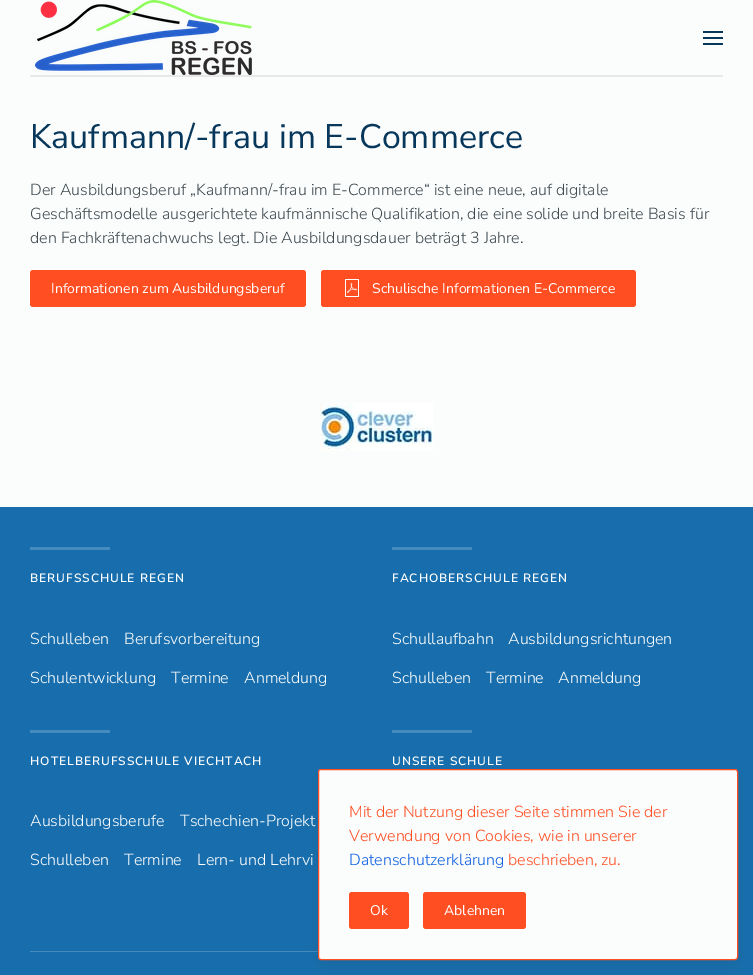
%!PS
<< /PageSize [753 975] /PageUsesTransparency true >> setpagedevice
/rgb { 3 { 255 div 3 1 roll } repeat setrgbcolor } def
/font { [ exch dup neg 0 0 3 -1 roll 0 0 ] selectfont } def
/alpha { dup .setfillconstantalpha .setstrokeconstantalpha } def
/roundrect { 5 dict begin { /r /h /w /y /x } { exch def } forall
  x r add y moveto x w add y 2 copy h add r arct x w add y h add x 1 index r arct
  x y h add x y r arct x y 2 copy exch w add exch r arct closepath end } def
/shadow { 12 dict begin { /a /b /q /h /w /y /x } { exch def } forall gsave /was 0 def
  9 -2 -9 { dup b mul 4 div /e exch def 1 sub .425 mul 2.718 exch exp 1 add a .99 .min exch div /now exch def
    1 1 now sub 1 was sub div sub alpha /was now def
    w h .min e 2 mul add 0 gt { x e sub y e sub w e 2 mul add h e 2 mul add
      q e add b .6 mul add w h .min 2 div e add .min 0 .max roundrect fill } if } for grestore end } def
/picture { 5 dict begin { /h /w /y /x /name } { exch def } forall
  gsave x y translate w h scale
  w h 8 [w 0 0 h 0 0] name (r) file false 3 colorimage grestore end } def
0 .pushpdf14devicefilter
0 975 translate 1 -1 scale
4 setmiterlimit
251 252 252 rgb
0 0 753 975 rectfill
232 232 232 rgb
30 75 693 2 rectfill
(img/1.rgb) 35 0 217 75 picture
[
  [703 31 20 2 7 56 92]
  [703 37 20 2 7 56 92]
  [703 43 20 2 7 56 92]
] { aload pop rgb rectfill } forall
255 78 33 rgb
30 270 276 37 3 roundrect fill
321 270 315 37 3 roundrect fill
(img/2.rgb) 345 279 14 18 picture
(img/3.rgb) 320 403 113 48 picture
[
  [0 507 753 468 24 110 173]
  [30 547 80 3 70 139 189]
  [392 547 80 3 70 139 189]
  [30 730 80 3 70 139 189]
  [392 730 80 3 70 139 189]
  [30 951 288 1 70 139 189]
] { aload pop rgb rectfill } forall
0 0 0 rgb
318 773 420 191 3 7.5 0.07 shadow
251 252 252 rgb
318.5 769.5 419 190 2.5 roundrect gsave fill grestore
255 78 33 rgb
stroke
349 892 60 37 3 roundrect fill
423 892 103 37 3 roundrect fill
/NunitoSans-ExtraLight 34 font
7 56 92 rgb
30 148 moveto (Kaufmann/-frau im E-Commerce) show
/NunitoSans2-ExtraLight 16 font
62 74 79 rgb
[
  [(Der Ausbildungsberuf „Kaufmann/-frau im E-Commerce“ ist eine neue, auf digitale) 30 195]
  [(Geschäftsmodelle ausgerichtete kaufmännische Qualifikation, die eine solide und breite Basis für) 30 219]
  [(den Fachkräftenachwuchs legt. Die Ausbildungsdauer beträgt 3 Jahre.) 30 243]
] { aload pop moveto show } forall
/NunitoSans-ExtraLight 14 font
255 255 255 rgb
51 293 moveto (Informationen zum Ausbildungsberuf) show
372 293 moveto (Schulische Informationen E-Commerce) show
/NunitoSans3-ExtraLight 12 font
30 582 moveto 1 0 (BERUFSSCHULE REGEN) ashow
/NunitoSans2-ExtraLight 16 font
[
  [(Schulleben) 30 644]
  [(Berufsvorbereitung) 124 644]
  [(Schulentwicklung) 30 683]
  [(Termine) 171 683]
  [(Anmeldung) 244 683]
] { aload pop moveto show } forall
/NunitoSans3-ExtraLight 12 font
392 582 moveto 1 0 (FACHOBERSCHULE REGEN) ashow
/NunitoSans2-ExtraLight 16 font
[
  [(Schullaufbahn) 392 644]
  [(Ausbildungsrichtungen) 508 644]
  [(Schulleben) 392 683]
  [(Termine) 486 683]
  [(Anmeldung) 558 683]
] { aload pop moveto show } forall
/NunitoSans3-ExtraLight 12 font
30 765 moveto 1 0 (HOTELBERUFSSCHULE VIECHTACH) ashow
/NunitoSans2-ExtraLight 16 font
[
  [(Ausbildungsberufe) 30 826]
  [(Tschechien-Projekt) 180 826]
  [(Schulleben) 30 865]
  [(Termine) 124 865]
  [(Lern- und Lehrvi) 197 865]
] { aload pop moveto show } forall
/NunitoSans3-ExtraLight 12 font
392 765 moveto 1 0 (UNSERE SCHULE) ashow
/NunitoSans2-ExtraLight 16 font
255 78 33 rgb
349 817 moveto (Mit der Nutzung dieser Seite stimmen Sie der) show
349 841 moveto (Verwendung von Cookies, wie in unserer) show
13 94 224 rgb
349 865 moveto (Datenschutzerklärung) show
255 78 33 rgb
508 865 moveto (beschrieben, zu.) show
/NunitoSans-ExtraLight 14 font
255 255 255 rgb
370 915 moveto (Ok) show
444 915 moveto (Ablehnen) show
.poppdf14devicefilter showpage
